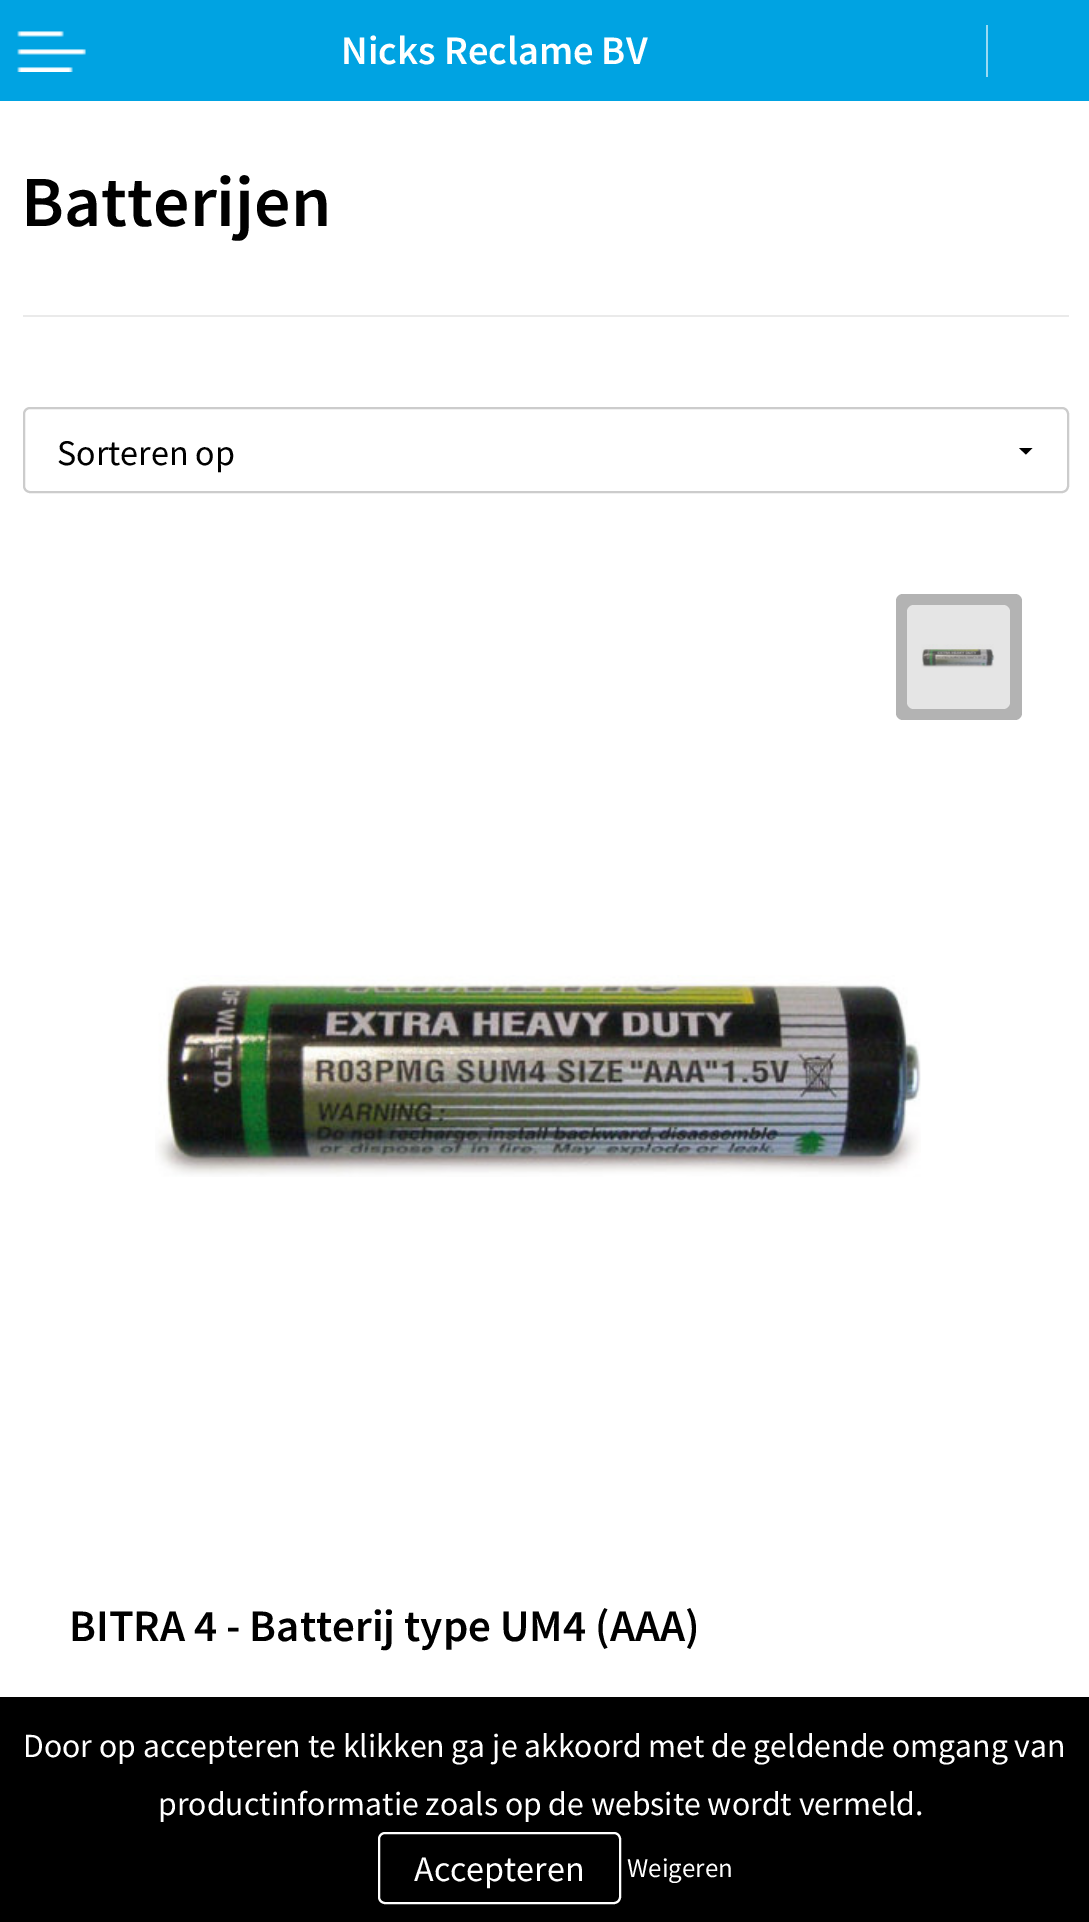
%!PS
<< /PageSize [1089 1922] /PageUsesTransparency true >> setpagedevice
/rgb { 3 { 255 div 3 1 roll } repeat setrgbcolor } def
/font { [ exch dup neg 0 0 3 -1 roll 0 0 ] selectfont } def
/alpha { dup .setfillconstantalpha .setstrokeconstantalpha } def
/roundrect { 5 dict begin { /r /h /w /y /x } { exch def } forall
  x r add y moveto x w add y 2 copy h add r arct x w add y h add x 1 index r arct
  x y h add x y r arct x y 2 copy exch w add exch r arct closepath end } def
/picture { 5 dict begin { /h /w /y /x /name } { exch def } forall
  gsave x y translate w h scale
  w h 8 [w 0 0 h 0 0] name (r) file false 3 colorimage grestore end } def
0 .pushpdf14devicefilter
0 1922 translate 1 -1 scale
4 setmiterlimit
255 255 255 rgb
0 0 1089 1922 rectfill
0 163 226 rgb
0 0 1089 101 rectfill
(img/1.rgb) 17 31 69 41 picture
153 218 243 rgb
986 25 2 52 rectfill
234 234 234 rgb
23 315 1046 2 rectfill
0 0 0 rgb
1032.5 448 moveto 1026 454.5 lineto 1019 448 lineto closepath fill
204 204 204 rgb
2 setlinewidth
24 408 1044 84 6 roundrect stroke
179 179 179 rgb
896 594 126 126 7 roundrect fill
255 255 255 rgb
907 605 103 104 7 roundrect fill
(img/2.rgb) 921 644 74 24 picture
0.1 alpha
0 0 0 rgb
907 605 103 104 7 roundrect fill
1 alpha
(img/3.rgb) 155 975 766 202 picture
0 1697 1089 225 rectfill
255 255 255 rgb
379 1833 241 70 6 roundrect stroke
/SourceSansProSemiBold-SemiBold 40.5 font
341 64 moveto (Nicks Reclame BV) show
/SourceSansProSemiBold-SemiBold 72 font
0 0 0 rgb
21 226 moveto (Batterijen) show
/SourceSansPro-Regular 36 font
57 465 moveto (Sorteren op) show
/SourceSansProSemiBold-SemiBold 45 font
69 1641 moveto (BITRA 4 - Batterij type UM4 \(AAA\)) show
/SourceSansPro-Regular 33.75 font
255 255 255 rgb
23 1757 moveto (Door op accepteren te klikken ga je akkoord met de geldende omgang van) show
158 1815 moveto (productinformatie zoals op de website wordt vermeld.) show
/SourceSansPro-Regular 36 font
414 1881 moveto (Accepteren) show
/SourceSansPro-Regular 27 font
627 1877 moveto (Weigeren) show
.poppdf14devicefilter showpage
